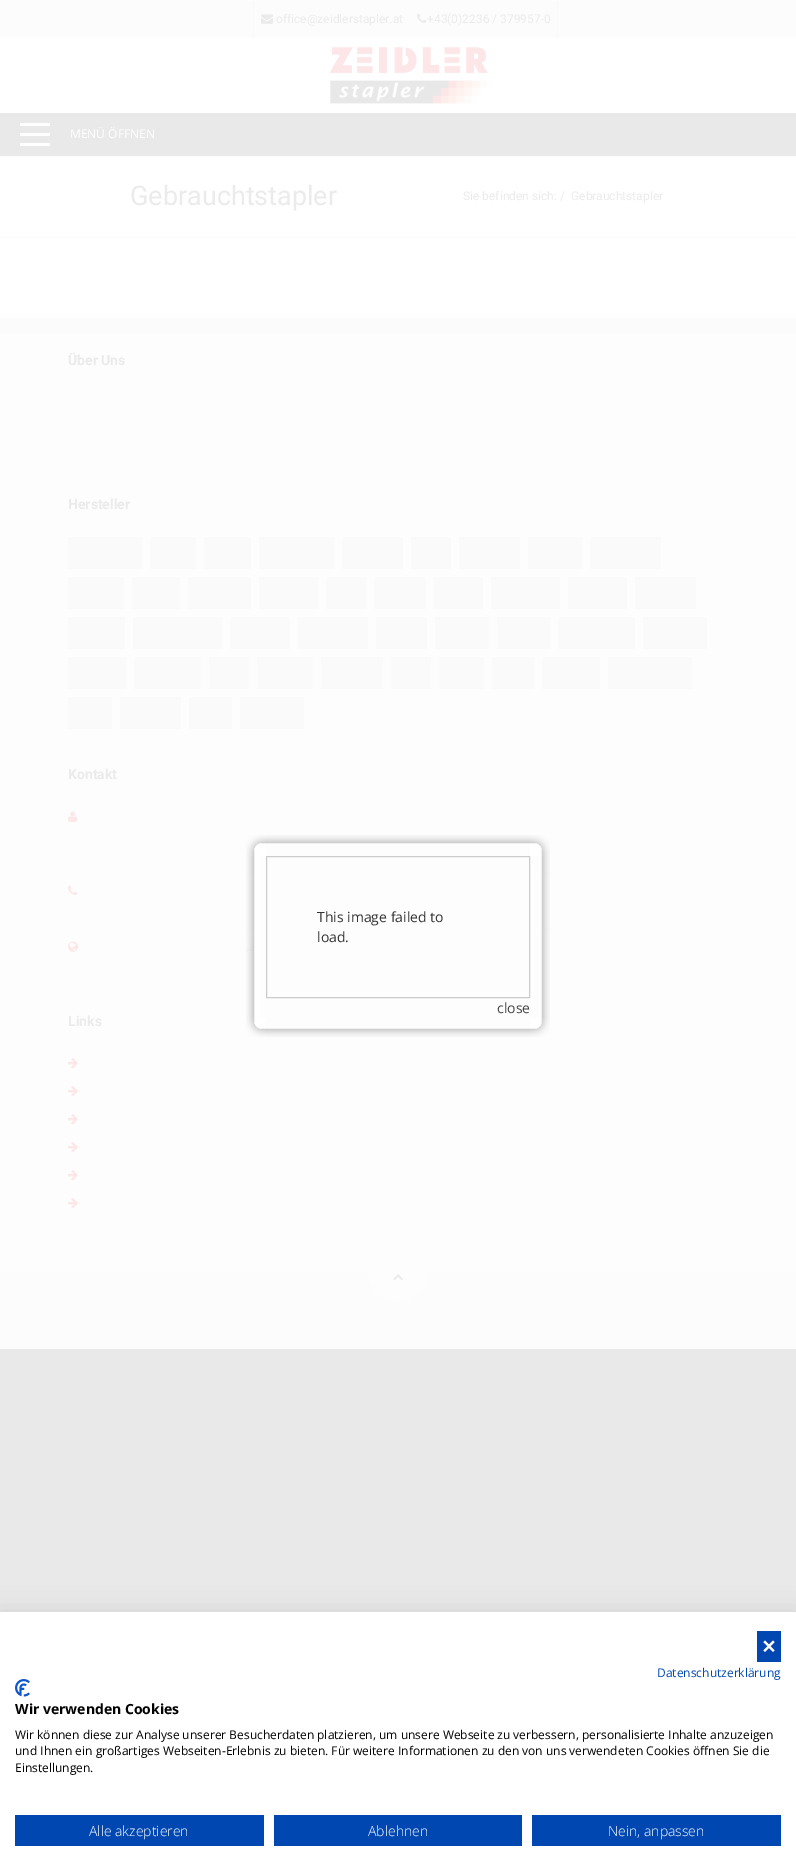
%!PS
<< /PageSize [796 1873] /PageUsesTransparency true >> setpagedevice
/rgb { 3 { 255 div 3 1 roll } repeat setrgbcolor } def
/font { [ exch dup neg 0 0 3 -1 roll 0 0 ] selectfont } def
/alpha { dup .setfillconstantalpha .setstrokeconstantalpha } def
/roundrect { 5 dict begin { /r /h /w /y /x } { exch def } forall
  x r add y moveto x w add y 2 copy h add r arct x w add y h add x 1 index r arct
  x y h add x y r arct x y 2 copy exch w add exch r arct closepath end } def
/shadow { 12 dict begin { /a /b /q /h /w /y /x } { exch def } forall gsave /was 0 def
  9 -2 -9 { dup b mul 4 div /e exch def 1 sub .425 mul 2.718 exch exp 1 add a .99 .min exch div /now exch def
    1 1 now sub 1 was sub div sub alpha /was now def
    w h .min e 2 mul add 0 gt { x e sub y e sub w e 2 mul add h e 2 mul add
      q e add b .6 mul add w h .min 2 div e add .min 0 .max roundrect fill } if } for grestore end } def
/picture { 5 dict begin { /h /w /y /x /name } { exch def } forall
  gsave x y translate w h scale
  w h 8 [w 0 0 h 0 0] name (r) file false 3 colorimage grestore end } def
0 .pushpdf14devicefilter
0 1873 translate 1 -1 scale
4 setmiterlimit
233 233 233 rgb
0 0 796 1873 rectfill
[
  [0 238 796 80 255 255 255]
  [0 1 796 36 252 252 252]
  [0 0 796 1 253 253 253]
  [0 37 796 1 253 253 253]
  [557 1 1 36 249 249 249]
  [253 1 1 36 249 249 249]
] { aload pop rgb rectfill } forall
(img/1.rgb) 261 14 12 10 picture
(img/2.rgb) 417 13 10 10 picture
255 255 255 rgb
0 38 796 75 rectfill
(img/3.rgb) 329 46 159 58 picture
[
  [20 143 30 3 255 255 255]
  [20 133 30 3 255 255 255]
  [20 123 30 3 255 255 255]
  [0 157 796 80 255 255 255]
  [0 156 796 1 251 251 251]
  [0 237 796 1 251 251 251]
  [0 333 796 939 253 253 253]
  [0 318 796 15 251 251 251]
  [68 537 74 32 250 250 250]
  [150 537 46 32 250 250 250]
  [204 537 47 32 250 250 250]
  [259 537 75 32 250 250 250]
  [342 537 61 32 250 250 250]
  [411 537 40 32 250 250 250]
  [459 537 61 32 250 250 250]
  [528 537 54 32 250 250 250]
  [590 537 71 32 250 250 250]
  [68 577 56 32 250 250 250]
  [132 577 48 32 250 250 250]
  [188 577 63 32 250 250 250]
  [259 577 59 32 250 250 250]
  [326 577 40 32 250 250 250]
  [374 577 52 32 250 250 250]
  [434 577 49 32 250 250 250]
  [491 577 69 32 250 250 250]
  [568 577 59 32 250 250 250]
  [635 577 61 32 250 250 250]
  [68 617 57 32 250 250 250]
  [133 617 89 32 250 250 250]
  [230 617 60 32 250 250 250]
  [298 617 70 32 250 250 250]
  [376 617 51 32 250 250 250]
  [435 617 54 32 250 250 250]
  [497 617 53 32 250 250 250]
  [558 617 77 32 250 250 250]
  [643 617 64 32 250 250 250]
  [68 657 58 32 250 250 250]
  [134 657 67 32 250 250 250]
  [209 657 40 32 250 250 250]
  [257 657 56 32 250 250 250]
  [321 657 62 32 250 250 250]
  [391 657 40 32 250 250 250]
  [439 657 45 32 250 250 250]
  [492 657 42 32 250 250 250]
  [542 657 58 32 250 250 250]
  [608 657 84 32 250 250 250]
  [68 697 44 32 250 250 250]
  [120 697 61 32 250 250 250]
  [189 697 43 32 250 250 250]
  [240 697 64 32 250 250 250]
] { aload pop rgb rectfill } forall
(img/4.rgb) 68 811 10 11 picture
(img/5.rgb) 68 885 10 10 picture
(img/6.rgb) 68 941 11 11 picture
(img/7.rgb) 68 1058 10 11 picture
(img/7.rgb) 68 1086 10 11 picture
(img/7.rgb) 68 1114 10 11 picture
(img/7.rgb) 68 1142 10 11 picture
(img/7.rgb) 68 1170 10 11 picture
(img/7.rgb) 68 1198 10 11 picture
252 252 252 rgb
0 1272 796 77 rectfill
(img/8.rgb) 368 1272 60 30 picture
(img/9.rgb) 393 1274 10 7 picture
(img/10.rgb) 246 835 20 21 picture
(img/11.rgb) 266 835 264 9 picture
(img/12.rgb) 530 835 20 21 picture
(img/13.rgb) 246 856 14 162 picture
204 204 204 rgb
266.5 856.5 263 141 rectstroke
(img/14.rgb) 541 856 9 162 picture
(img/15.rgb) 246 1018 20 19 picture
(img/16.rgb) 266 1028 264 9 picture
(img/17.rgb) 530 1018 20 19 picture
0 0 0 rgb
0 1612 796 261 0 12 0.1 shadow
255 255 255 rgb
0 1612 796 261 rectfill
0 71 178 rgb
757 1631 24 31 rectfill
255 255 255 rgb
773 1640.5 moveto 774.5 1642 lineto 765 1652 lineto 763.5 1650.5 lineto closepath fill
763.5 1642 moveto 765 1640.5 lineto 774.5 1650.5 lineto 773 1652 lineto closepath fill
(img/18.rgb) 15 1679 15 18 picture
[
  [15 1815 249 31 0 71 178]
  [274 1815 248 31 0 71 178]
  [532 1815 249 31 0 71 178]
] { aload pop rgb rectfill } forall
/Roboto-Regular 12 font
235 235 235 rgb
276 23 moveto (office@zeidlerstapler.at) show
427 23 moveto (+43\(0\)2236 / 379957-0) show
/OpenSans-Regular 12 font
255 255 255 rgb
70 138 moveto (MENÜ ÖFFNEN) show
/Roboto-Regular 27 font
235 235 235 rgb
130 205 moveto (Gebrauchtstapler) show
/Roboto-Regular 12 font
463 200 moveto (Sie befinden sich: /) show
571 200 moveto (Gebrauchtstapler) show
/Roboto-Bold 14 font
[
  [(Über Uns) 68 365]
  [(Hersteller) 68 509]
  [(Kontakt) 68 779]
  [(Links) 68 1026]
] { aload pop moveto show } forall
/OpenSans-Regular 14 font
51 51 51 rgb
317 922 moveto (This image failed to) show
317 942 moveto (load.) show
68 68 68 rgb
497 1013 moveto (close) show
/OpenSans-Regular 12 font
0 71 178 rgb
657 1677 moveto (Datenschutzerklärung) show
/OpenSans-Bold 14 font
0 0 0 rgb
15 1714 moveto (Wir verwenden Cookies) show
/OpenSans-Regular 12 font
[
  [(Wir können diese zur Analyse unserer Besucherdaten platzieren, um unsere Webseite zu verbessern, personalisierte Inhalte anzuzeigen) 15 1739]
  [(und Ihnen ein großartiges Webseiten-Erlebnis zu bieten. Für weitere Informationen zu den von uns verwendeten Cookies öffnen Sie die) 15 1755]
  [(Einstellungen.) 15 1772]
] { aload pop moveto show } forall
/OpenSans-Light 14 font
255 255 255 rgb
[
  [(Alle akzeptieren) 89 1836]
  [(Ablehnen) 368 1836]
  [(Nein, anpassen) 608 1836]
] { aload pop moveto show } forall
.poppdf14devicefilter showpage
